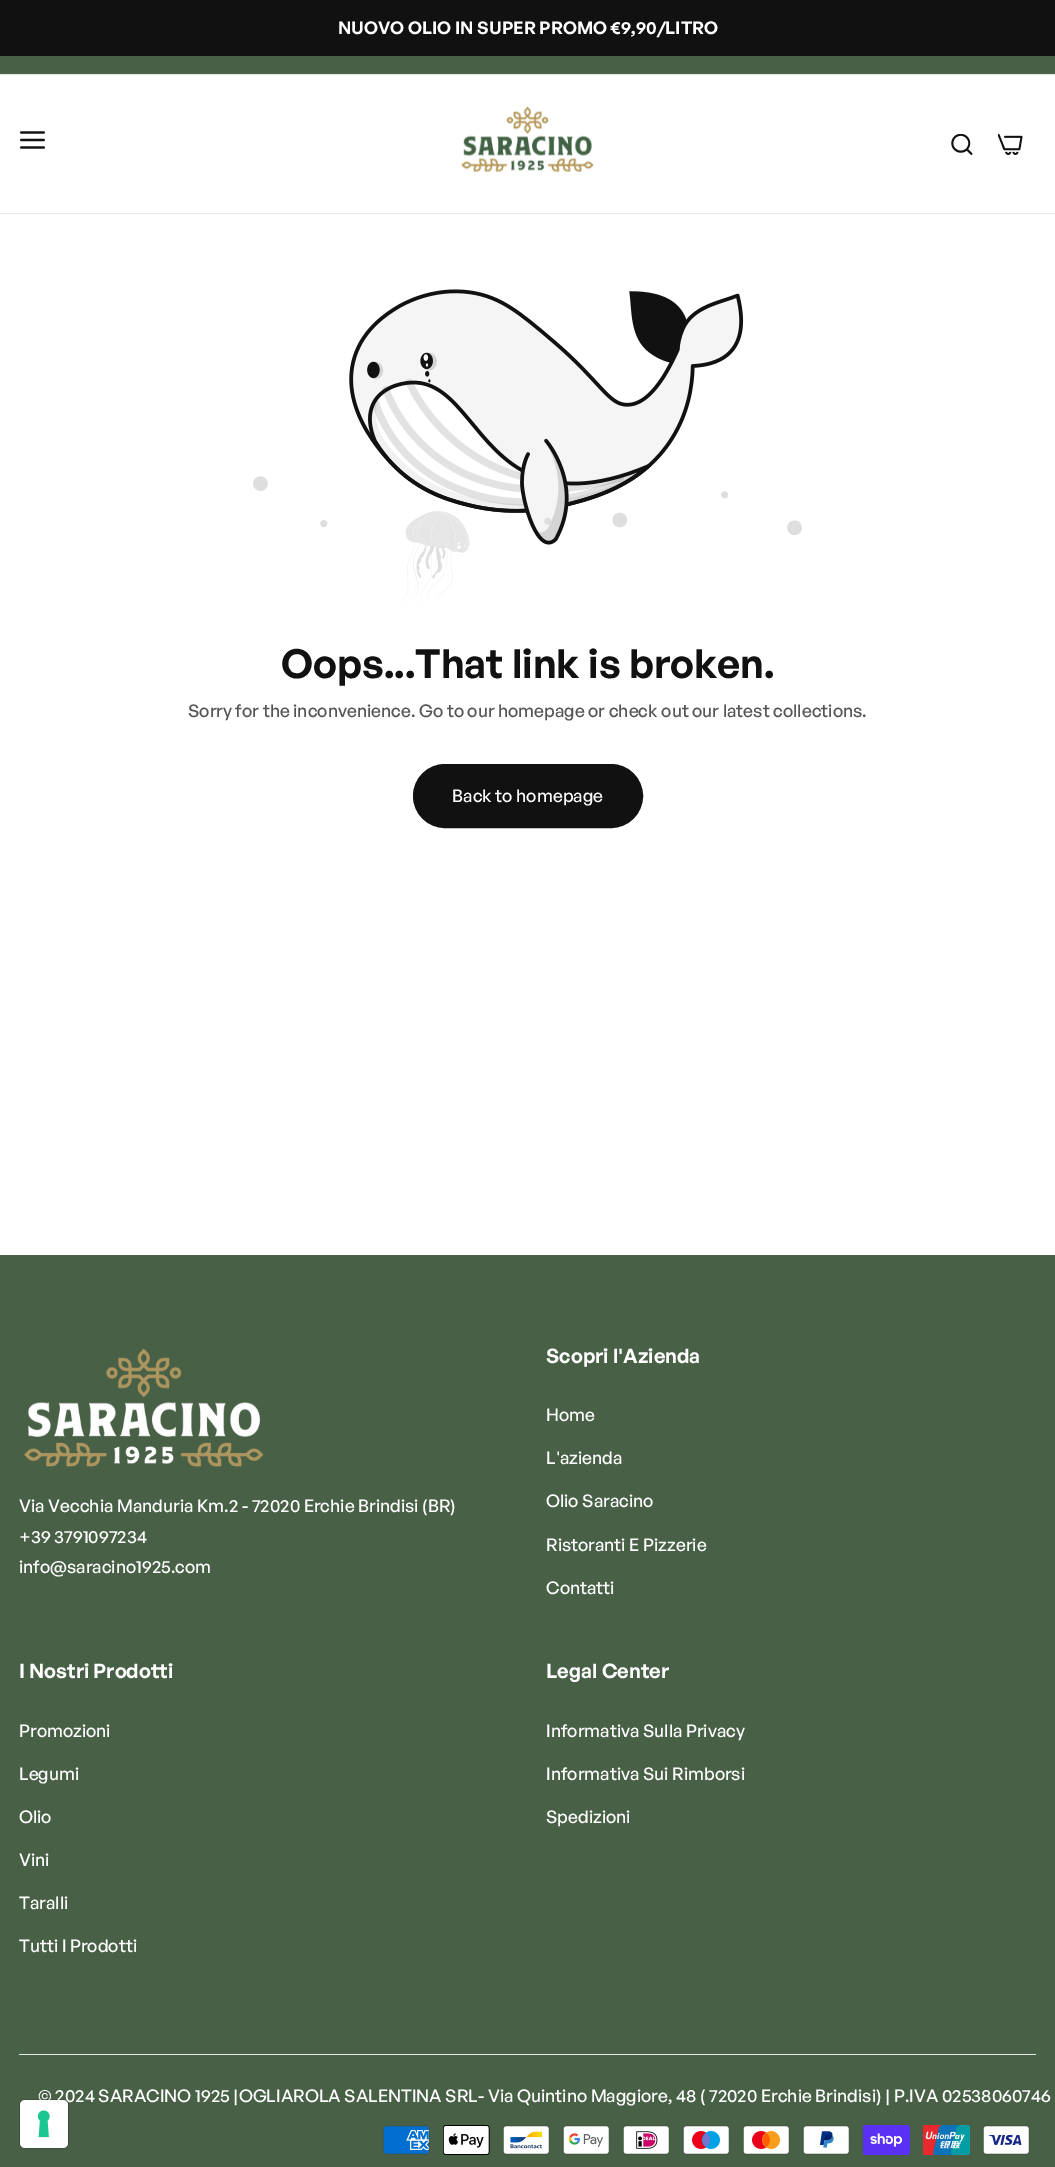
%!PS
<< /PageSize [1055 2167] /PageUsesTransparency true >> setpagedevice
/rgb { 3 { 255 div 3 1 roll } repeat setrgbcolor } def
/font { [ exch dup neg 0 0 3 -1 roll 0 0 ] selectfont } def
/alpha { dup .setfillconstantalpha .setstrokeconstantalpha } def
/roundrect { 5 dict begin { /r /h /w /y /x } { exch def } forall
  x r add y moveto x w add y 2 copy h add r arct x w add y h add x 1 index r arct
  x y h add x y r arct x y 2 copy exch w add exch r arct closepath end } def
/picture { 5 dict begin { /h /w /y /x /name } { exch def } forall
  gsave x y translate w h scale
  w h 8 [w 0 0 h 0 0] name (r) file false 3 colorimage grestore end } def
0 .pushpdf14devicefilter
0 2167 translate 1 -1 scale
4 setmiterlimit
255 255 255 rgb
0 0 1055 2167 rectfill
[
  [0 0 1055 56 17 17 17]
  [0 213 1055 1 229 232 236]
  [0 56 1055 18 72 96 70]
  [0 74 1055 1 229 232 236]
] { aload pop rgb rectfill } forall
(img/1.rgb) 20 131 25 18 picture
(img/2.rgb) 461 106 133 67 picture
(img/3.rgb) 951 134 22 21 picture
(img/4.rgb) 998 134 25 21 picture
(img/5.rgb) 253 289 549 314 picture
17 17 17 rgb
414.5 765.5 227 61 30.5 roundrect gsave fill grestore
3 setlinewidth
stroke
72 96 70 rgb
0 1255 1055 912 rectfill
(img/6.rgb) 24 1348 240 119 picture
229 232 236 rgb
19 2054 1017 1 rectfill
(img/7.rgb) 383 2125 47 30 picture
(img/8.rgb) 443 2125 47 30 picture
(img/9.rgb) 503 2125 47 30 picture
(img/10.rgb) 563 2125 47 30 picture
(img/11.rgb) 623 2125 47 30 picture
(img/12.rgb) 683 2125 47 30 picture
(img/13.rgb) 743 2125 47 30 picture
(img/14.rgb) 803 2125 47 30 picture
(img/15.rgb) 863 2125 47 30 picture
(img/16.rgb) 923 2125 47 30 picture
(img/17.rgb) 983 2125 47 30 picture
/GeneralSans-SemiBold 17.5 font
255 255 255 rgb
338 34 moveto (NUOVO OLIO IN SUPER PROMO €9,90/LITRO) show
/GeneralSans-SemiBold 40 font
17 17 17 rgb
281 678 moveto (Oops...That link is broken.) show
/GeneralSans-Medium 17.5 font
85 85 85 rgb
188 717 moveto (Sorry for the inconvenience. Go to our homepage or check out our latest collections.) show
255 255 255 rgb
[
  [(Back to homepage) 452 802]
  [(Via Vecchia Manduria Km.2 - 72020 Erchie Brindisi \(BR\)) 19 1512]
  [(+39 3791097234) 19 1543]
  [(info@saracino1925.com) 19 1573]
] { aload pop moveto show } forall
/GeneralSans-SemiBold 20 font
546 1363 moveto (Scopri l'Azienda) show
/GeneralSans-Medium 17.5 font
[
  [(Home) 546 1421]
  [(L'azienda) 546 1464]
  [(Olio Saracino) 546 1507]
  [(Ristoranti E Pizzerie) 546 1551]
  [(Contatti) 546 1594]
] { aload pop moveto show } forall
/GeneralSans-SemiBold 20 font
19 1678 moveto (I Nostri Prodotti) show
/GeneralSans-Medium 17.5 font
[
  [(Promozioni) 19 1737]
  [(Legumi) 19 1780]
  [(Olio) 19 1823]
  [(Vini) 19 1866]
  [(Taralli) 19 1909]
  [(Tutti I Prodotti) 19 1952]
] { aload pop moveto show } forall
/GeneralSans-SemiBold 20 font
546 1678 moveto (Legal Center) show
/GeneralSans-Medium 17.5 font
[
  [(Informativa Sulla Privacy) 546 1737]
  [(Informativa Sui Rimborsi) 546 1780]
  [(Spedizioni) 546 1823]
  [(© 2024 SARACINO 1925 |OGLIAROLA SALENTINA SRL- Via Quintino Maggiore, 48 \( 72020 Erchie Brindisi\) | P.IVA 02538060746) 38 2102]
] { aload pop moveto show } forall
0.15 alpha
0 0 0 rgb
1 setlinewidth
19.5 2099.5 49 49 5.5 roundrect stroke
1 alpha
255 255 255 rgb
20 2100 48 48 5 roundrect fill
(img/18.rgb) 37 2110 13 28 picture
.poppdf14devicefilter showpage
